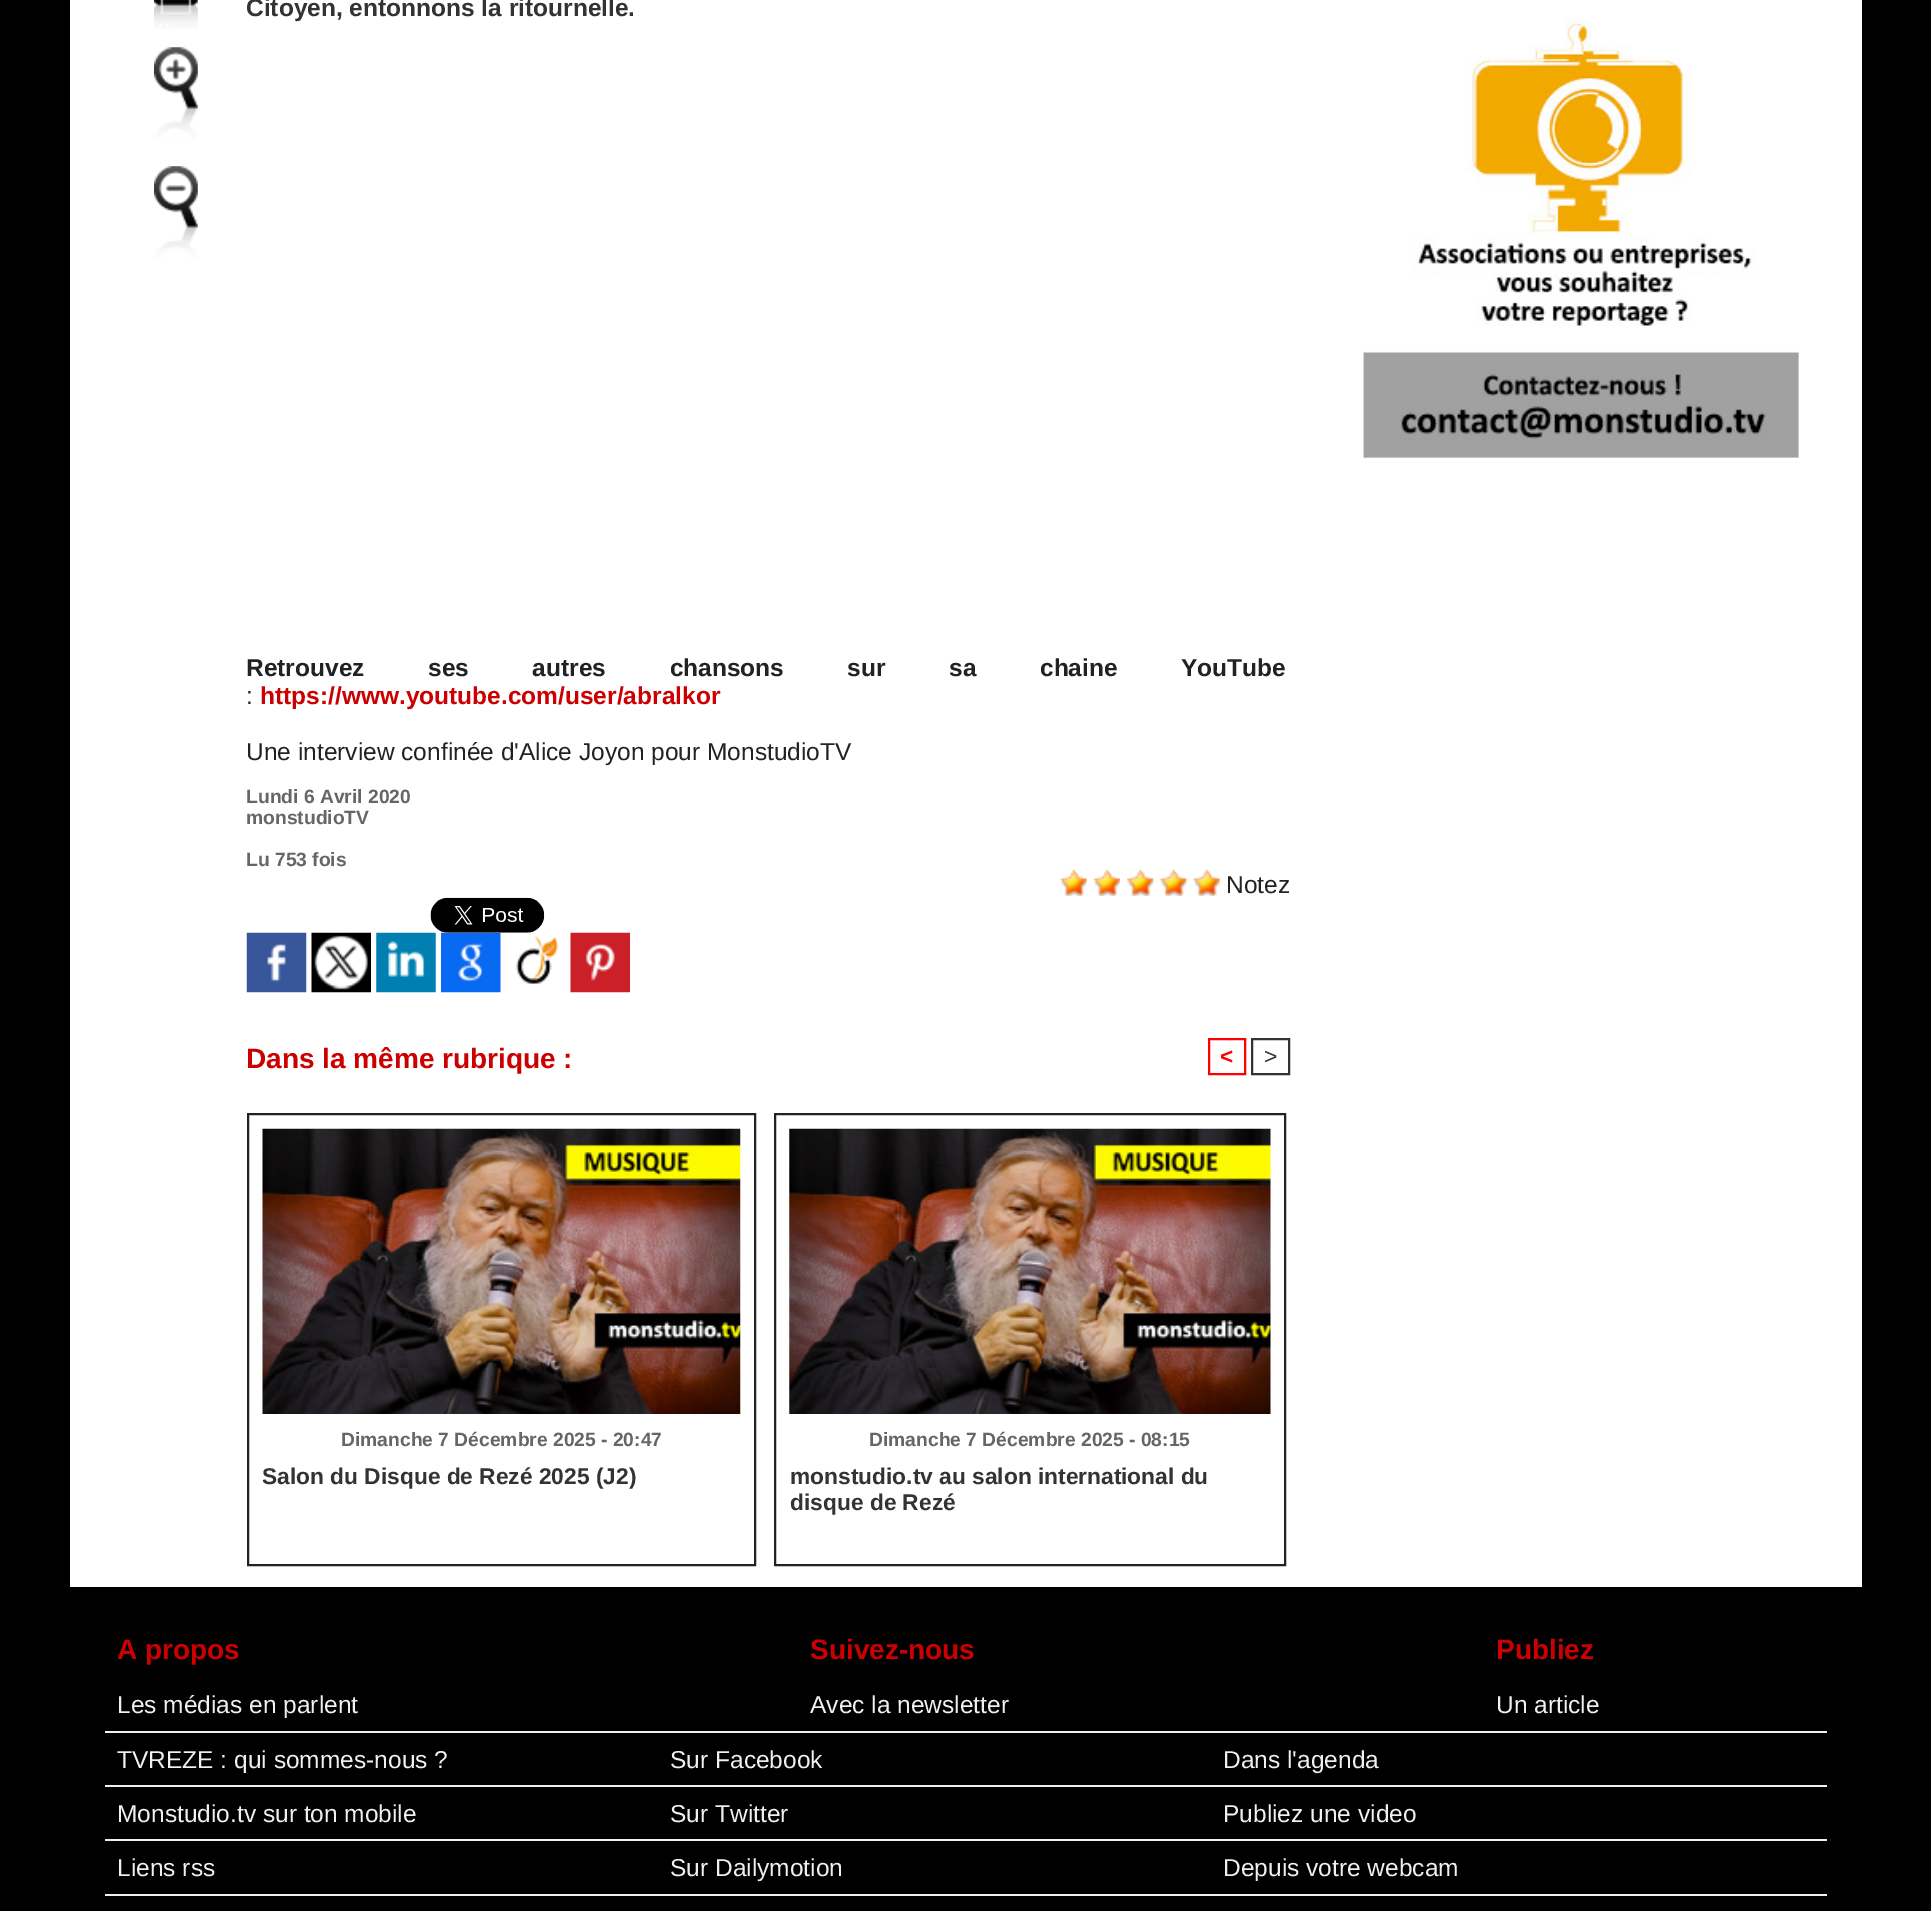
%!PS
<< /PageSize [1931 1911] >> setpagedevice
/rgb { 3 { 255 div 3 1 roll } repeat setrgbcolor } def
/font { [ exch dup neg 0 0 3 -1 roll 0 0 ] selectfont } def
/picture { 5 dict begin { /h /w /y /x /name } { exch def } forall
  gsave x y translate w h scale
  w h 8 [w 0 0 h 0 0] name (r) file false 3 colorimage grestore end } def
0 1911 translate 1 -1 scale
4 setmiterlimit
0 0 0 rgb
0 0 1931 1911 rectfill
255 255 255 rgb
70 0 1792 1587 rectfill
(img/1.rgb) 154 0 44 29 picture
(img/2.rgb) 154 47 44 92 picture
(img/3.rgb) 154 166 44 92 picture
(img/4.rgb) 1060 869 27 27 picture
(img/5.rgb) 1093 869 27 27 picture
(img/6.rgb) 1127 869 27 27 picture
(img/7.rgb) 1160 869 27 27 picture
(img/4.rgb) 1193 869 27 27 picture
(img/11.rgb) 376 932 60 61 picture
(img/12.rgb) 441 932 60 61 picture
(img/8.rgb) 430 897 115 36 picture
(img/9.rgb) 246 932 61 61 picture
(img/10.rgb) 311 932 60 61 picture
(img/13.rgb) 516 936 43 48 picture
(img/14.rgb) 570 932 60 61 picture
255 0 0 rgb
2 setlinewidth
1209 1039 36 35 rectstroke
51 51 51 rgb
1252 1039 37 35 rectstroke
34 34 34 rgb
248 1114 507 451 rectstroke
(img/15.rgb) 262 1128 479 286 picture
775 1114 510 451 rectstroke
(img/16.rgb) 789 1128 482 286 picture
(img/17.rgb) 1363 19 437 440 picture
[
  [105 1731 1722 2 240 240 240]
  [105 1785 1722 2 240 240 240]
  [105 1839 1722 2 240 240 240]
  [105 1894 1722 2 240 240 240]
] { aload pop rgb rectfill } forall
/LiberationSans-Bold 24.5 font
51 51 51 rgb
246 16 moveto (Citoyen, entonnons la ritournelle.) show
34 34 34 rgb
246 676 moveto 56.75 0 32 (Retrouvez ses autres chansons sur sa chaine YouTube) widthshow
/LiberationSans-Regular 24.5 font
246 704 moveto (:) show
/LiberationSans-Bold 24.5 font
204 0 0 rgb
260 704 moveto (https://www.youtube.com/user/abralkor) show
/LiberationSans-Regular 24.5 font
34 34 34 rgb
246 760 moveto (Une interview confinée d'Alice Joyon pour MonstudioTV) show
/LiberationSans-Bold 19.25 font
102 102 102 rgb
[
  [(Lundi 6 Avril 2020) 246 803]
  [(monstudioTV) 246 824]
  [(Lu 753 fois) 246 866]
] { aload pop moveto show } forall
/LiberationSans-Regular 24.5 font
34 34 34 rgb
1226 893 moveto (Notez) show
/LiberationSans-Bold 28 font
204 0 0 rgb
246 1068 moveto (Dans la même rubrique :) show
/LiberationSans-Bold 22.75 font
255 0 0 rgb
1220 1064 moveto (<) show
/LiberationSans-Regular 22.75 font
51 51 51 rgb
1264 1064 moveto (>) show
/LiberationSans-Bold 19.25 font
102 102 102 rgb
341 1446 moveto (Dimanche 7 Décembre 2025 - 20:47) show
/LiberationSans-Bold 22.75 font
51 51 51 rgb
262 1484 moveto (Salon du Disque de Rezé 2025 \(J2\)) show
/LiberationSans-Bold 19.25 font
102 102 102 rgb
869 1446 moveto (Dimanche 7 Décembre 2025 - 08:15) show
/LiberationSans-Bold 22.75 font
51 51 51 rgb
790 1484 moveto (monstudio.tv au salon international du) show
790 1510 moveto (disque de Rezé) show
/LiberationSans-Bold 28 font
204 0 0 rgb
117 1659 moveto (A propos) show
/LiberationSans-Regular 24.5 font
240 240 240 rgb
117 1713 moveto (Les médias en parlent) show
/LiberationSans-Bold 28 font
204 0 0 rgb
810 1659 moveto (Suivez-nous) show
/LiberationSans-Regular 24.5 font
240 240 240 rgb
810 1713 moveto (Avec la newsletter) show
/LiberationSans-Bold 28 font
204 0 0 rgb
1496 1659 moveto (Publiez) show
/LiberationSans-Regular 24.5 font
240 240 240 rgb
[
  [(Un article) 1496 1713]
  [(TVREZE : qui sommes-nous ?) 117 1768]
  [(Sur Facebook) 670 1768]
  [(Dans l'agenda) 1223 1768]
  [(Monstudio.tv sur ton mobile) 117 1822]
  [(Sur Twitter) 670 1822]
  [(Publiez une video) 1223 1822]
  [(Liens rss) 117 1876]
  [(Sur Dailymotion) 670 1876]
  [(Depuis votre webcam) 1223 1876]
] { aload pop moveto show } forall
showpage
